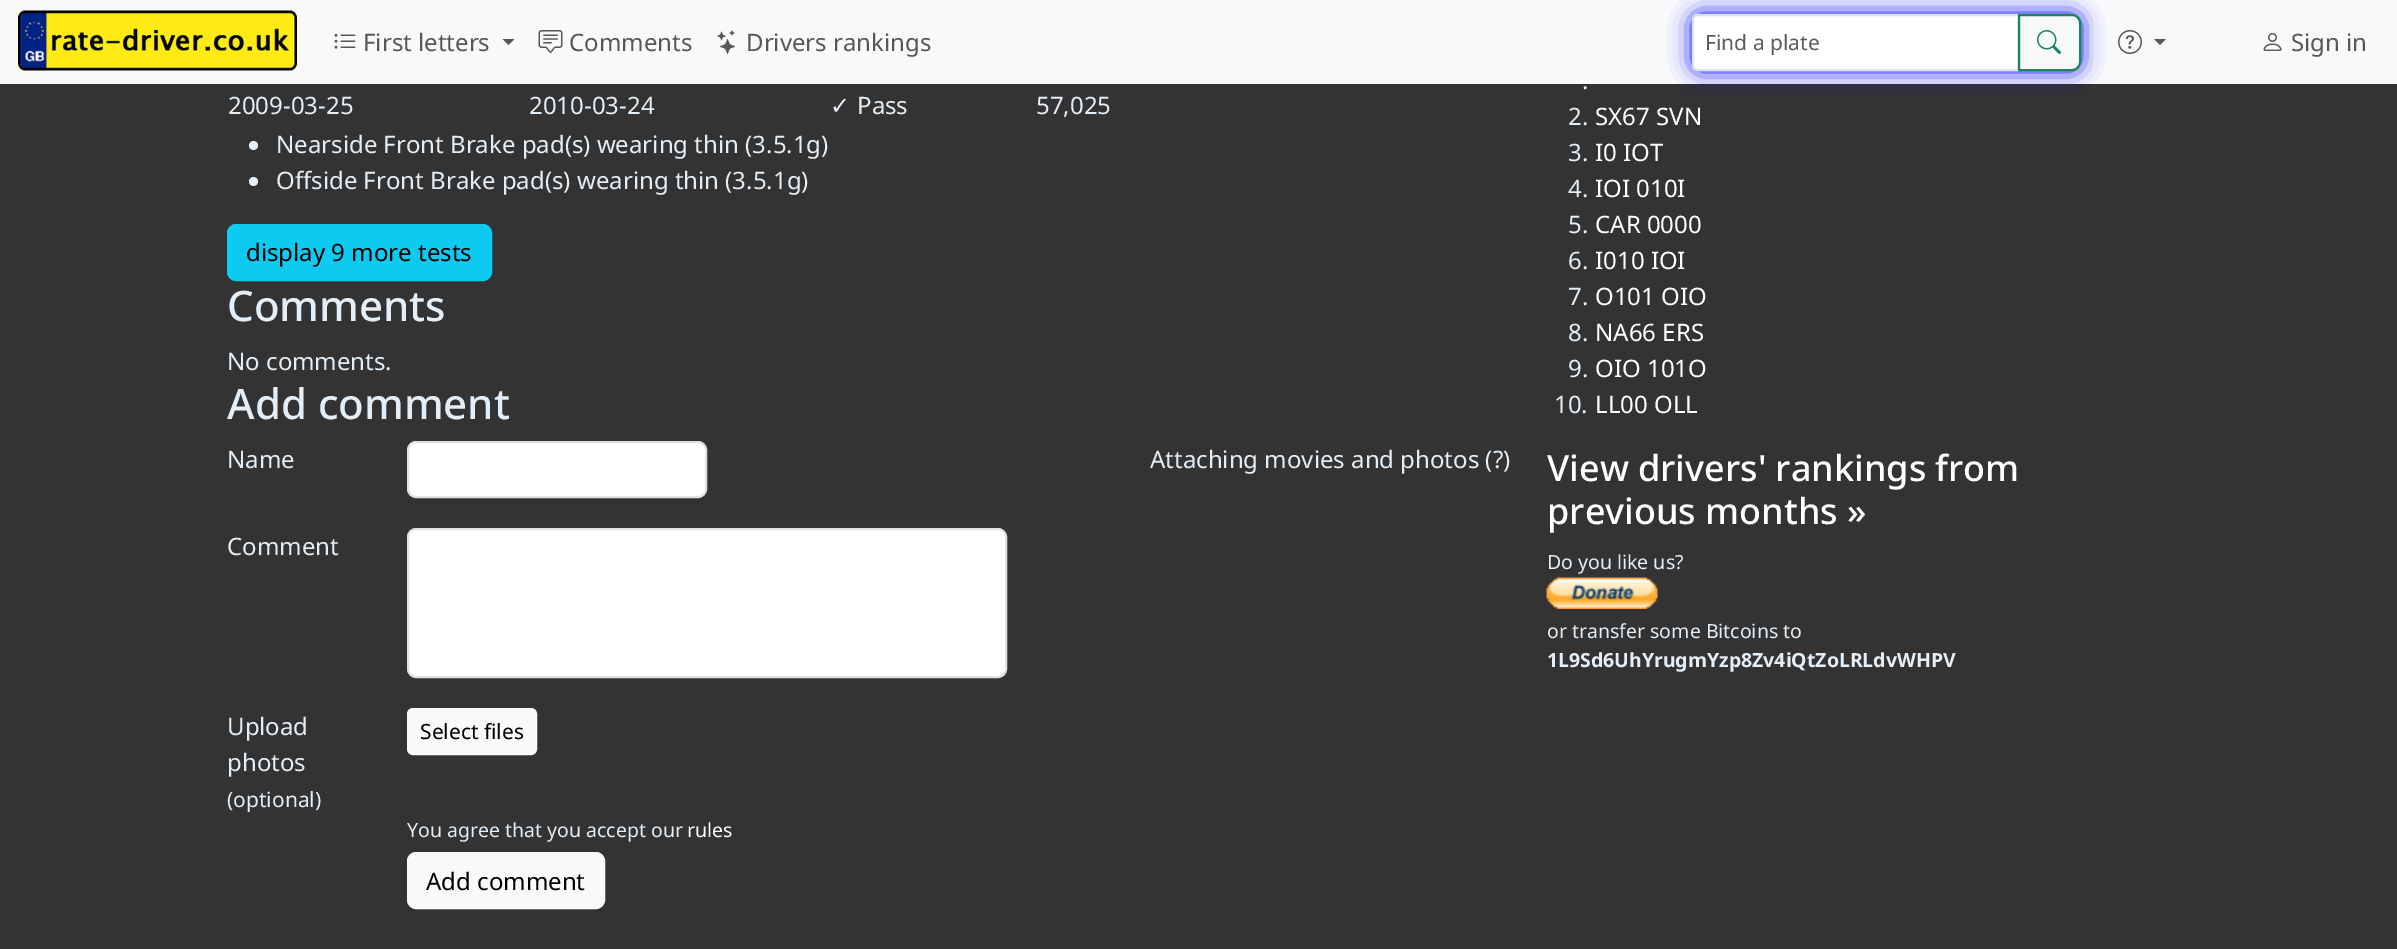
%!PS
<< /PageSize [2397 949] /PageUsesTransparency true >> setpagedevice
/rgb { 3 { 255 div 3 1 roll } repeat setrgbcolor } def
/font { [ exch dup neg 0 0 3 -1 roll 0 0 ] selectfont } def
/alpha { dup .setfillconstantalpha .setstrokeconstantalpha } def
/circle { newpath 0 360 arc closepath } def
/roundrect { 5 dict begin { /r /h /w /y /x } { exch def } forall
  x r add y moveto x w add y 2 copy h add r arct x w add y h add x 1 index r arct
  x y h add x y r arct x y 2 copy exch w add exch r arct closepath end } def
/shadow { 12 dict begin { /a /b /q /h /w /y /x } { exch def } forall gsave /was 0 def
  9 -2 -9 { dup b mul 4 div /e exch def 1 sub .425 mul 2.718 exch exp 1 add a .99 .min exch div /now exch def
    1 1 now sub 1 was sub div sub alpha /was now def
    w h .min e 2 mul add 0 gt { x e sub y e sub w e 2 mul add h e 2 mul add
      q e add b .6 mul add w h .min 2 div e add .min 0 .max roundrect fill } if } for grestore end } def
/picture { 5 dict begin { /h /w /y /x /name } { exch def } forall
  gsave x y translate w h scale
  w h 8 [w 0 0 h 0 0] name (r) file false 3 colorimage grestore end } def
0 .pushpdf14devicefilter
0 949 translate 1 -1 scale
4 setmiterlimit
51 51 51 rgb
0 0 2397 949 rectfill
248 249 250 rgb
0 0 2397 84 rectfill
(img/1.rgb) 18 10 279 61 picture
(img/2.rgb) 334 33 22 16 picture
87 87 88 rgb
502.5 39 moveto 514.5 39 lineto 508.5 45 lineto closepath fill
(img/3.rgb) 538 30 25 23 picture
(img/4.rgb) 717 30 18 24 picture
gsave
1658 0 moveto 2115 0 lineto 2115 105 lineto 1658 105 lineto closepath 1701 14 moveto 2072 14 lineto 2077 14 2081 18 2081 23 curveto 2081 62 lineto 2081 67 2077 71 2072 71 curveto 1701 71 lineto 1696 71 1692 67 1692 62 curveto 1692 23 lineto 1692 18 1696 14 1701 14 curveto closepath eoclip newpath
0 0 255 rgb
1692 14 389 57 9 11 1 shadow
grestore
255 255 255 rgb
1698 15 moveto 2018 15 lineto 2018 70 lineto 1698 70 lineto 1695 70 1693 68 1693 65 curveto 1693 20 lineto 1693 17 1695 15 1698 15 curveto closepath gsave fill grestore
222 226 230 rgb
2 setlinewidth
stroke
25 135 84 rgb
2019 15 moveto 2072 15 lineto 2076.5 15 2080 18.5 2080 23 curveto 2080 62 lineto 2080 66.5 2076.5 70 2072 70 curveto 2019 70 lineto closepath stroke
(img/5.rgb) 2037 30 24 24 picture
0.25 alpha
255 255 255 rgb
2093 18 2 48 rectfill
1 alpha
(img/6.rgb) 2118 30 24 24 picture
87 87 88 rgb
2154 39 moveto 2166 39 lineto 2160 45 lineto closepath fill
(img/7.rgb) 2263 33 19 18 picture
228 238 246 rgb
253.5 145.5 4.5 circle fill
253.5 181.5 4.5 circle fill
13 202 240 rgb
228 225 263 55 8 roundrect gsave fill grestore
stroke
255 255 255 rgb
408 442 298 55 8 roundrect gsave fill grestore
222 226 230 rgb
stroke
255 255 255 rgb
408 529 598 148 8 roundrect gsave fill grestore
222 226 230 rgb
stroke
248 249 250 rgb
408 709 128 45 5 roundrect gsave fill grestore
stroke
408 853 196 55 8 roundrect gsave fill grestore
stroke
(img/8.rgb) 1546 577 112 32 picture
/NotoSans-Regular 24 font
87 87 88 rgb
[
  [(First letters) 363 51]
  [(Comments) 569 51]
  [(Drivers rankings) 746 51]
] { aload pop moveto show } forall
/NotoSans-Regular 21 font
89 92 95 rgb
1705 50 moveto (Find a plate) show
/NotoSans-Regular 24 font
87 87 88 rgb
2291 51 moveto (Sign in) show
228 238 246 rgb
228 114 moveto (2009-03-25) show
529 114 moveto (2010-03-24) show
/DejaVuSans-Regular 24 font
830 114 moveto (✓) show
/NotoSans-Regular 24 font
[
  [(Pass) 857 114]
  [(57,025) 1036 114]
  [(Nearside Front Brake pad\(s\) wearing thin \(3.5.1g\)) 276 153]
  [(Offside Front Brake pad\(s\) wearing thin \(3.5.1g\)) 276 189]
] { aload pop moveto show } forall
0 0 0 rgb
246 261 moveto (display 9 more tests) show
/NotoSans-Medium 42 font
228 238 246 rgb
227 321 moveto (Comments) show
/NotoSans-Regular 24 font
227 370 moveto (No comments.) show
/NotoSans-Medium 42 font
227 419 moveto (Add comment) show
/NotoSans-Regular 24 font
[
  [(Name) 227 468]
  [(Comment) 227 555]
  [(Upload) 227 735]
  [(photos) 227 771]
] { aload pop moveto show } forall
/NotoSans-Regular 21 font
227 807 moveto (\(optional\)) show
0 0 0 rgb
420 739 moveto (Select files) show
/NotoSans-Regular 19.5 font
228 238 246 rgb
407 837 moveto (You agree that you accept our) show
255 255 255 rgb
687 837 moveto (rules) show
/NotoSans-Regular 24 font
0 0 0 rgb
426 890 moveto (Add comment) show
228 238 246 rgb
[
  [(Attaching movies and photos \(?\)) 1150 468]
  [(.) 1582 89]
  [(2.) 1568 125]
] { aload pop moveto show } forall
255 255 255 rgb
1595 125 moveto (SX67 SVN) show
228 238 246 rgb
1568 161 moveto (3.) show
255 255 255 rgb
1595 161 moveto (I0 IOT) show
228 238 246 rgb
1568 197 moveto (4.) show
255 255 255 rgb
1595 197 moveto (IOI 010I) show
228 238 246 rgb
1568 233 moveto (5.) show
255 255 255 rgb
1595 233 moveto (CAR 0000) show
228 238 246 rgb
1568 269 moveto (6.) show
255 255 255 rgb
1595 269 moveto (I010 IOI) show
228 238 246 rgb
1568 305 moveto (7.) show
255 255 255 rgb
1595 305 moveto (O101 OIO) show
228 238 246 rgb
1568 341 moveto (8.) show
255 255 255 rgb
1595 341 moveto (NA66 ERS) show
228 238 246 rgb
1568 377 moveto (9.) show
255 255 255 rgb
1595 377 moveto (OIO 101O) show
228 238 246 rgb
1554 413 moveto (10.) show
255 255 255 rgb
1595 413 moveto (LL00 OLL) show
/NotoSans-Medium 36 font
1547 481 moveto (View drivers' rankings from) show
1547 524 moveto (previous months ») show
/NotoSans-Regular 19.5 font
228 238 246 rgb
1547 569 moveto (Do you like us?) show
1547 638 moveto (or transfer some Bitcoins to) show
/NotoSans-Bold 19.5 font
1547 667 moveto (1L9Sd6UhYrugmYzp8Zv4iQtZoLRLdvWHPV) show
.poppdf14devicefilter showpage
